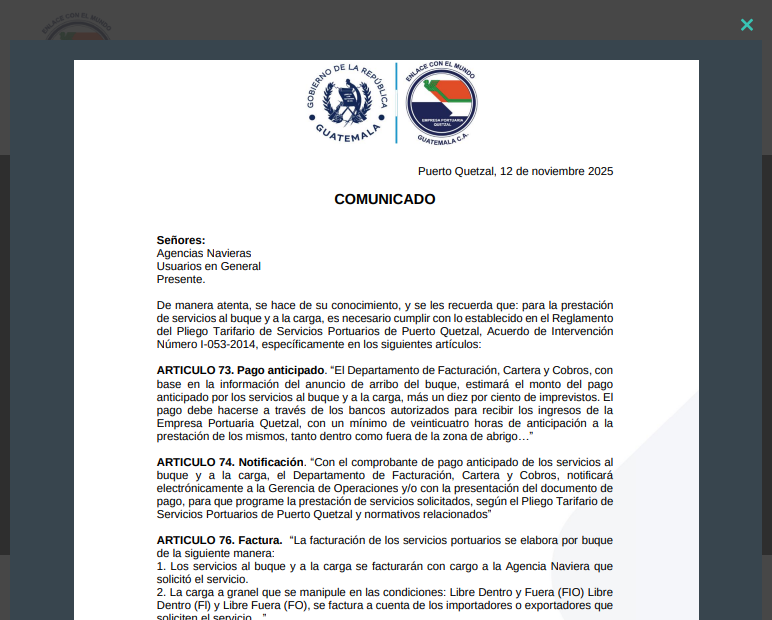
%!PS
<< /PageSize [772 620] >> setpagedevice
/rgb { 3 { 255 div 3 1 roll } repeat setrgbcolor } def
/picture { 5 dict begin { /h /w /y /x /name } { exch def } forall
  gsave x y translate w h scale
  w h 8 [w 0 0 h 0 0] name (r) file false 3 colorimage grestore end } def
0 620 translate 1 -1 scale
4 setmiterlimit
71 71 71 rgb
0 0 772 620 rectfill
(img/1.rgb) 41 12 397 28 picture
46 46 46 rgb
0 155 772 400 rectfill
(img/2.rgb) 741 18 12 13 picture
56 69 78 rgb
10 40 752 580 rectfill
(img/3.rgb) 74 60 625 560 picture
showpage
